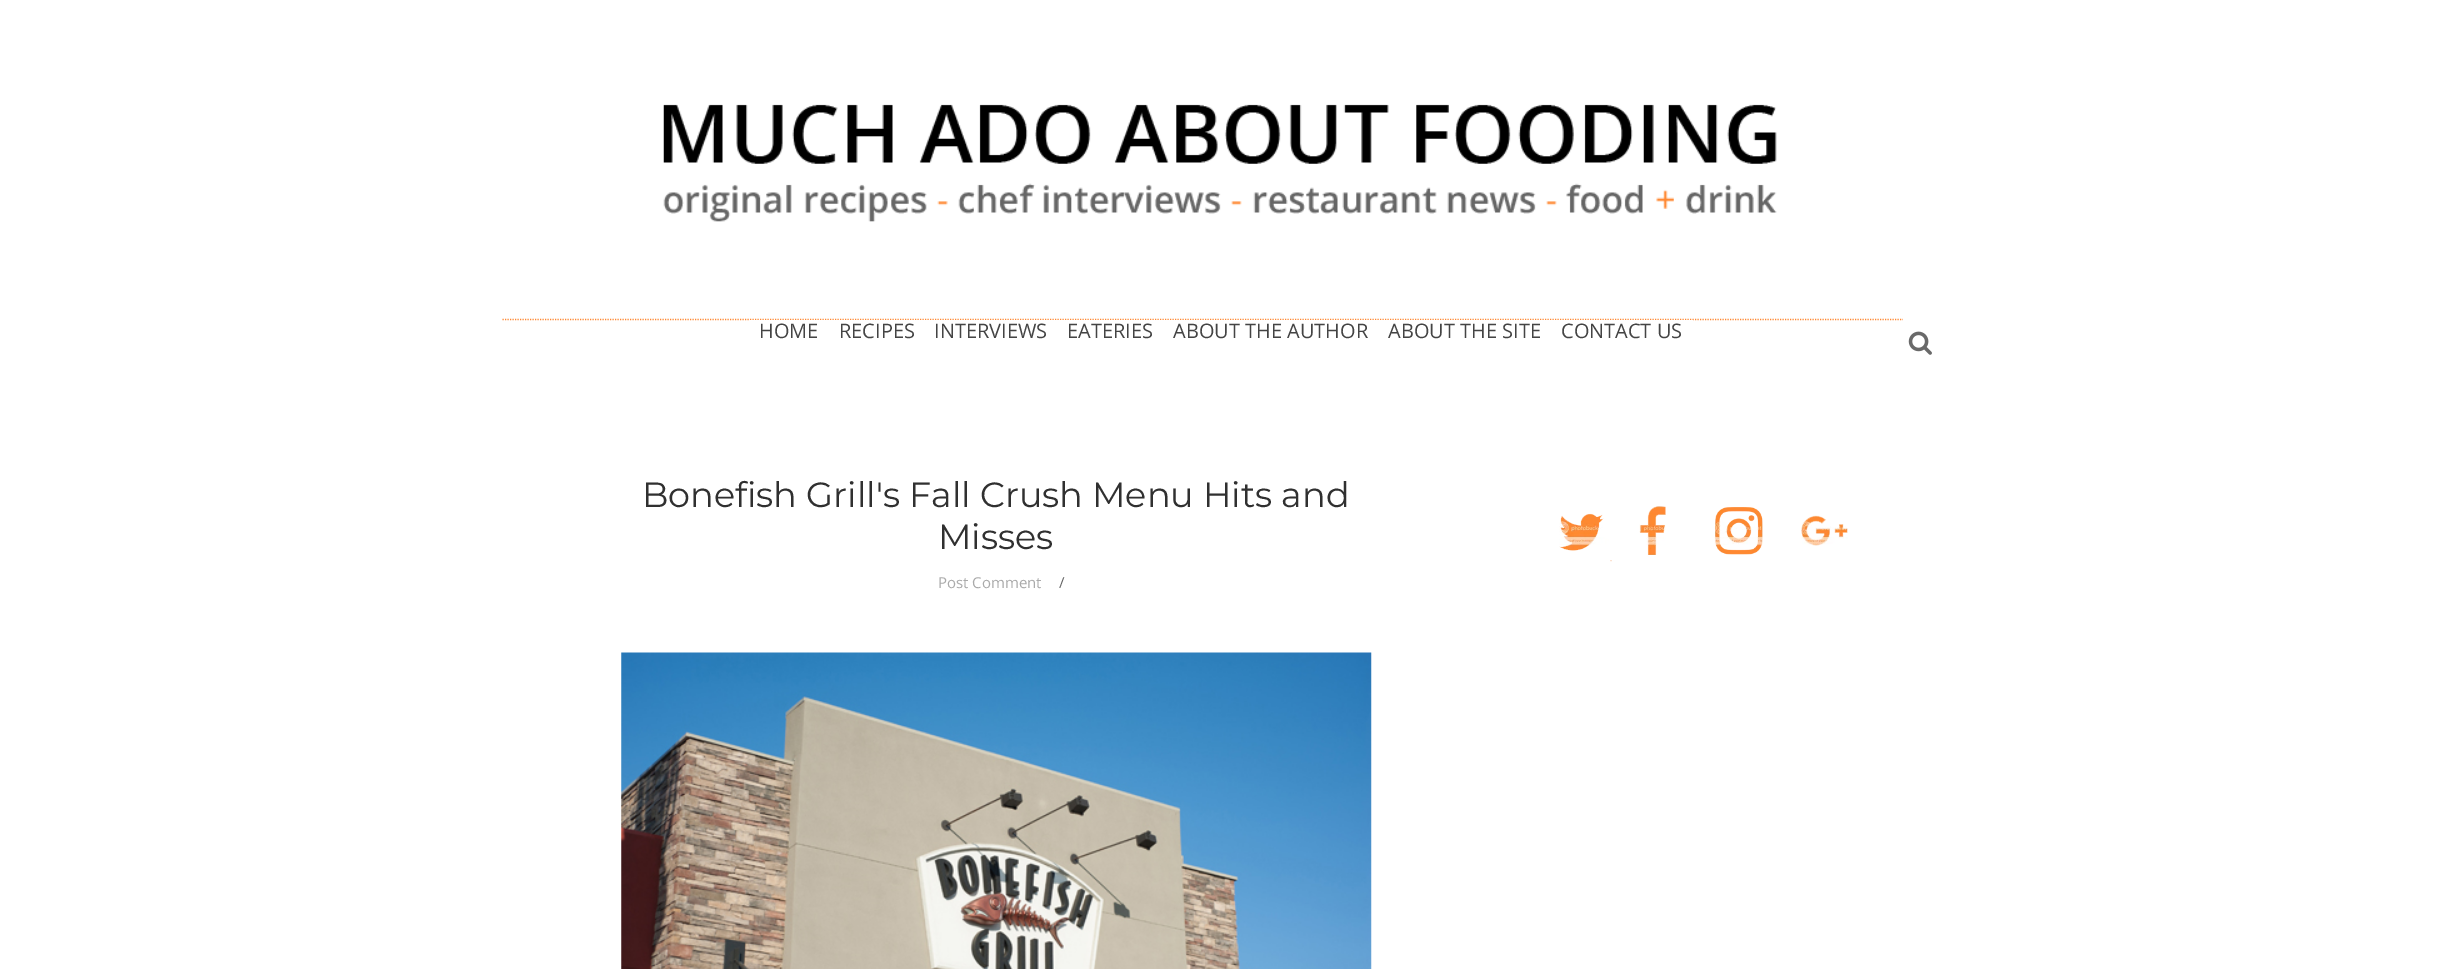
%!PS
<< /PageSize [2441 969] >> setpagedevice
/rgb { 3 { 255 div 3 1 roll } repeat setrgbcolor } def
/font { [ exch dup neg 0 0 3 -1 roll 0 0 ] selectfont } def
/picture { 5 dict begin { /h /w /y /x /name } { exch def } forall
  gsave x y translate w h scale
  w h 8 [w 0 0 h 0 0] name (r) file false 3 colorimage grestore end } def
0 969 translate 1 -1 scale
4 setmiterlimit
255 255 255 rgb
0 0 2441 969 rectfill
255 136 50 rgb
1.2 setlinewidth
[1.25 1.25] 0 setdash
502.5 319.5 moveto 1940 319.5 lineto stroke
(img/1.rgb) 663 104 1114 118 picture
[
  [750 320 79 1 255 255 255]
  [830 320 94 1 255 255 255]
  [925 320 239 1 255 255 255]
  [1165 320 214 1 255 255 255]
  [1380 320 313 1 255 255 255]
  [1903 318 36 3 255 255 255]
] { aload pop rgb rectfill } forall
(img/2.rgb) 1908 331 24 24 picture
(img/3.rgb) 621 652 751 317 picture
(img/4.rgb) 1559 513 53 49 picture
(img/5.rgb) 1639 506 27 49 picture
(img/6.rgb) 1714 507 49 48 picture
(img/7.rgb) 1801 515 47 31 picture
/OpenSans-Regular 20 font
68 68 68 rgb
[
  [(HOME) 759 338]
  [(RECIPES) 839 338]
  [(INTERVIEWS) 934 338]
  [(EATERIES) 1067 338]
  [(ABOUT THE AUTHOR) 1173 338]
  [(ABOUT THE SITE) 1388 338]
  [(CONTACT US) 1561 338]
] { aload pop moveto show } forall
/Montserrat-Thin 35 font
48 48 48 rgb
642 507 moveto (Bonefish Grill's Fall Crush Menu Hits and) show
938 549 moveto (Misses) show
/OpenSans-Regular 15 font
170 170 170 rgb
938 588 moveto (Post Comment) show
102 102 102 rgb
1059 588 moveto (/) show
showpage
